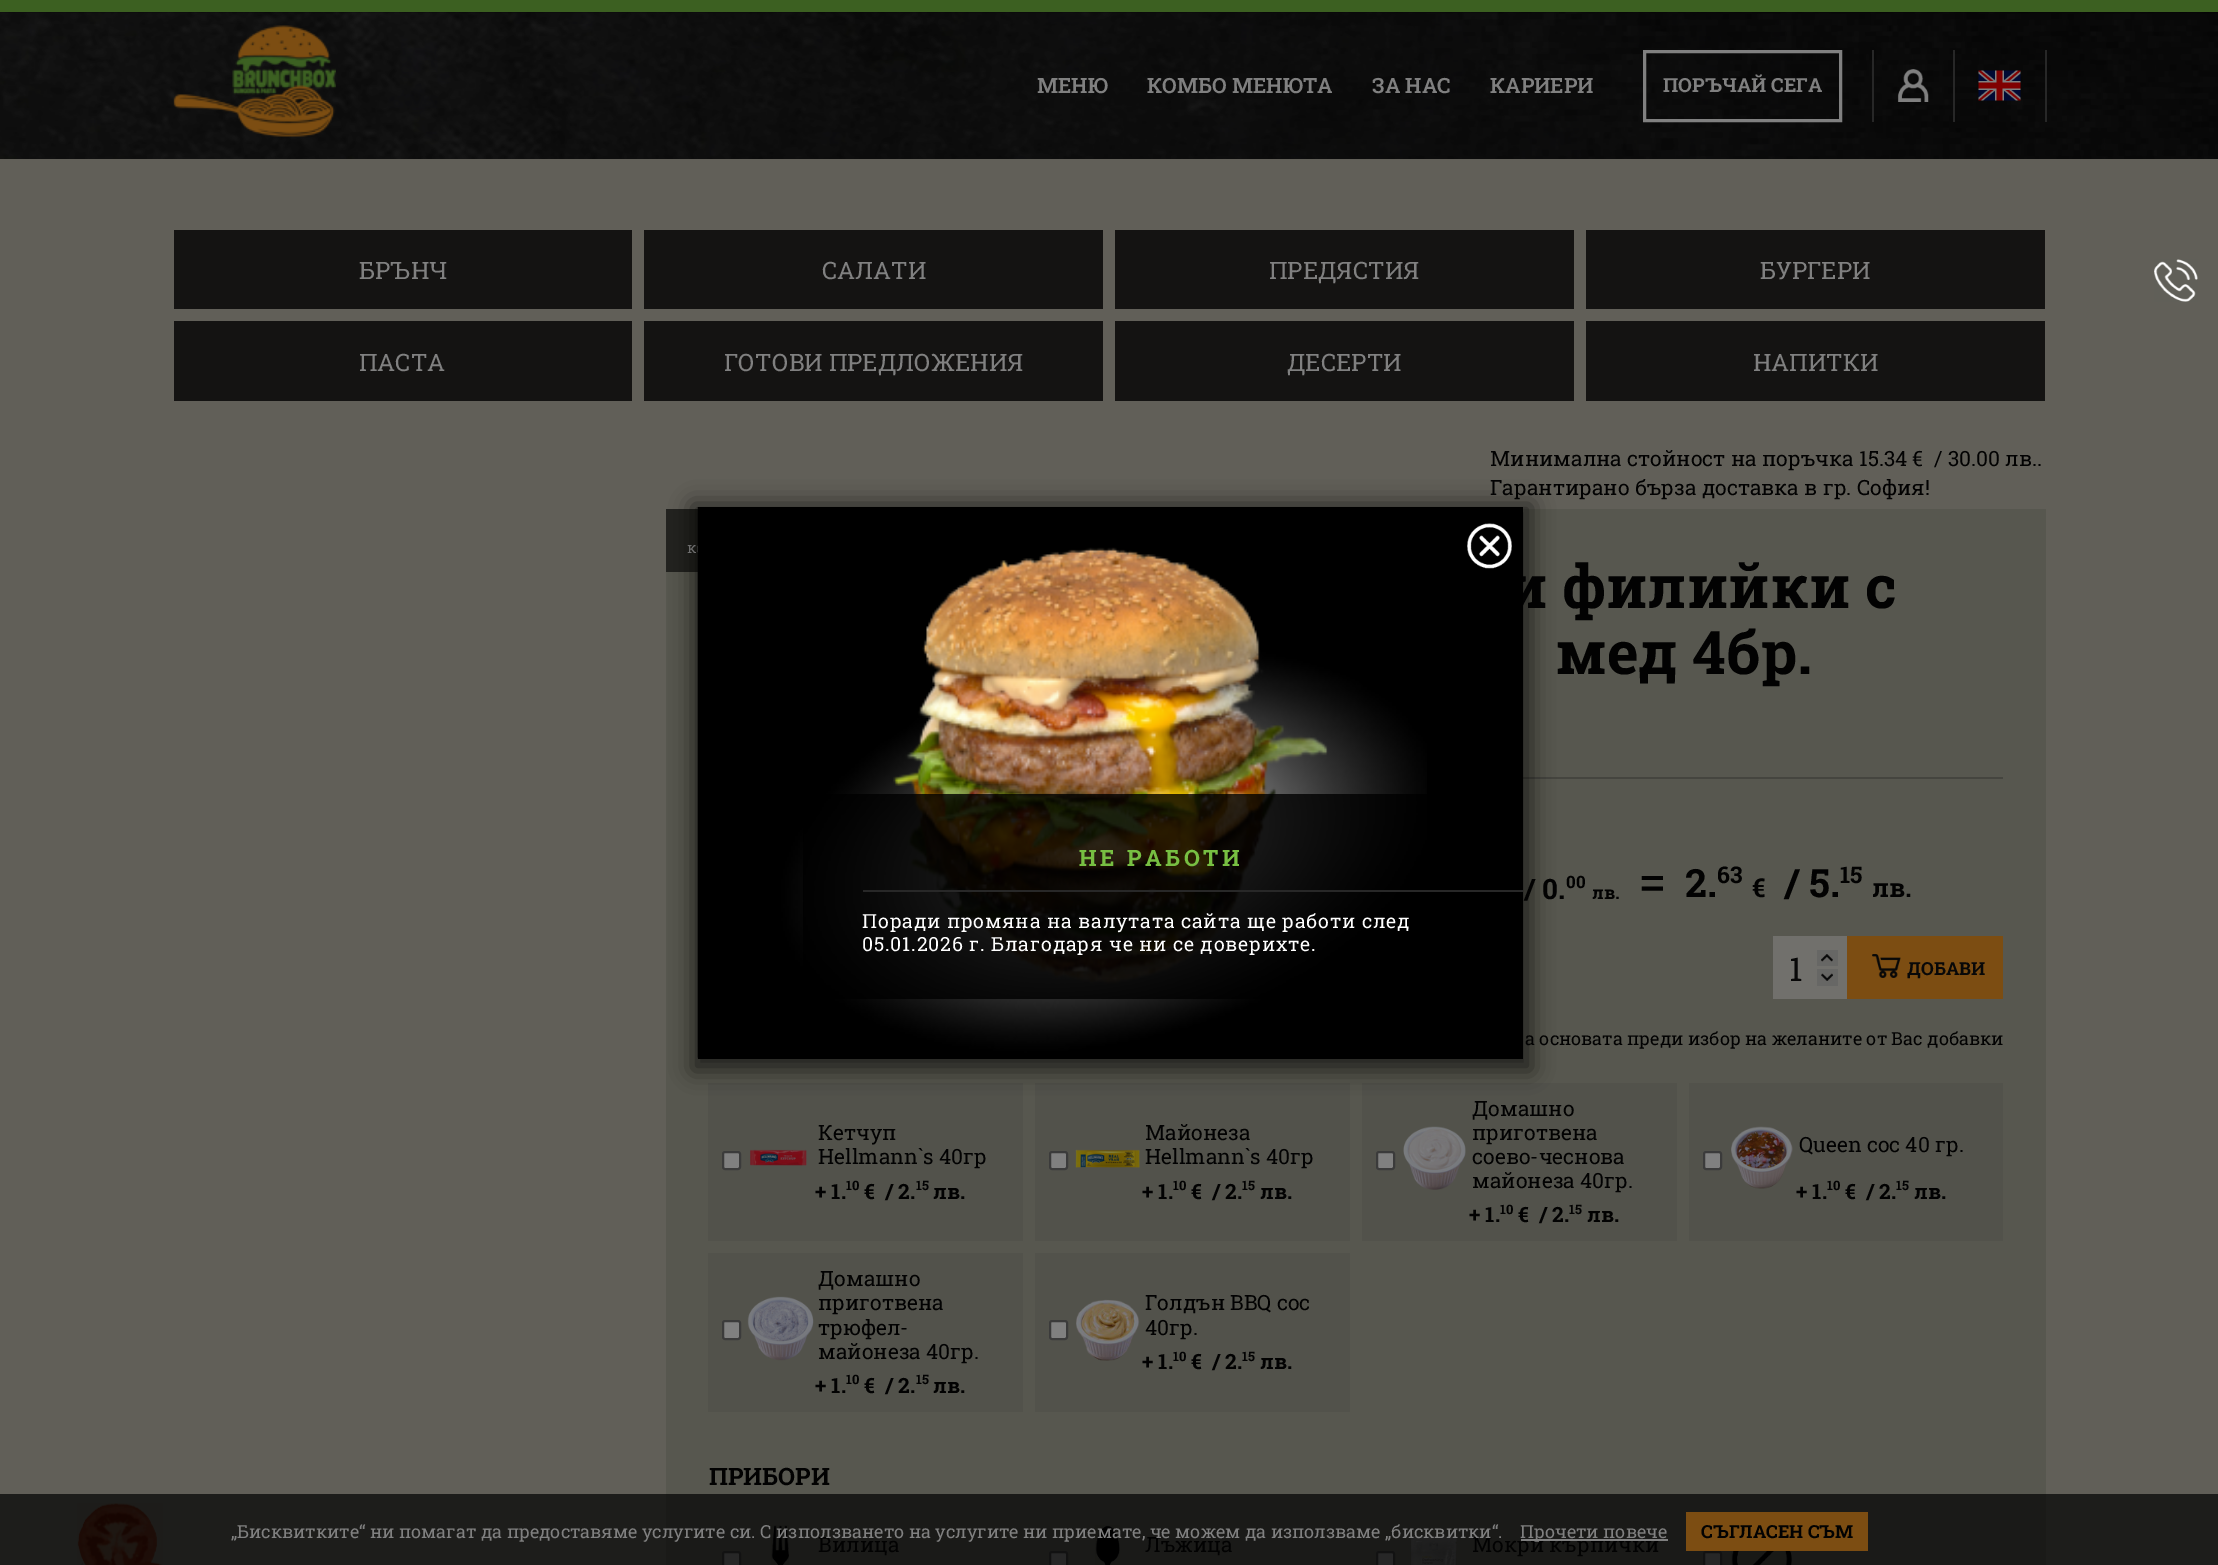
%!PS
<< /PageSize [2218 1565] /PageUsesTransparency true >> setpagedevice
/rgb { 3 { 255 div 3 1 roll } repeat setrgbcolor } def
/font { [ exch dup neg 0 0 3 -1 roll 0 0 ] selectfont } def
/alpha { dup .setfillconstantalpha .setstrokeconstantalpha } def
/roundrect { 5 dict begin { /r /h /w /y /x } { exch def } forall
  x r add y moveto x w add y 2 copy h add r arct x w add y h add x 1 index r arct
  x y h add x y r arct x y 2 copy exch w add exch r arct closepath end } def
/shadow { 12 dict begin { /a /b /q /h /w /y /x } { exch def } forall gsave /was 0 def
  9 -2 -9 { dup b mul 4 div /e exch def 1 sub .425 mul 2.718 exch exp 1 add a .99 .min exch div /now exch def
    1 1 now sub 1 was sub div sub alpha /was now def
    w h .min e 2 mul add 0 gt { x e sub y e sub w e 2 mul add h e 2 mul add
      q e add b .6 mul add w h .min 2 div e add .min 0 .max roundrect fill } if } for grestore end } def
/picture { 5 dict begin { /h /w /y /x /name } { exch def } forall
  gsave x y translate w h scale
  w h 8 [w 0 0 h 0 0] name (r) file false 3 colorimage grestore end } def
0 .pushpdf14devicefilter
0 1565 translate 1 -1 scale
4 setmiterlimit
97 95 88 rgb
0 0 2218 1565 rectfill
29 29 27 rgb
0 1494 2218 71 rectfill
(img/1.rgb) 0 12 2218 147 picture
60 96 33 rgb
0 0 2218 12 rectfill
(img/2.rgb) 173 25 163 112 picture
128 128 128 rgb
3 setlinewidth
1644.5 51.5 196 69 rectstroke
39 39 39 rgb
1953 50 2 72 rectfill
1872 50 2 72 rectfill
(img/3.rgb) 1897 69 32 33 picture
2045 50 2 72 rectfill
(img/4.rgb) 1978 70 43 31 picture
(img/5.rgb) 77 1503 86 62 picture
[
  [174 230 458 79 20 19 18]
  [644 230 459 79 20 19 18]
  [1115 230 459 79 20 19 18]
  [1586 230 459 79 20 19 18]
  [174 321 458 80 20 19 18]
  [644 321 459 80 20 19 18]
  [1115 321 459 80 20 19 18]
  [1586 321 459 80 20 19 18]
  [666 509 1380 985 87 87 79]
  [666 1494 1380 71 26 26 24]
  [666 509 32 63 35 35 32]
  [1523 777 480 2 69 69 63]
  [1773 936 74 63 113 112 108]
  [1817 950 21 16 103 103 101]
] { aload pop rgb rectfill } forall
(img/6.rgb) 1821 954 12 8 picture
1817 969 21 17 rectfill
(img/7.rgb) 1821 973 12 8 picture
124 77 18 rgb
1847 936 156 63 rectfill
(img/8.rgb) 1872 954 29 24 picture
82 82 75 rgb
708 1083 315 158 rectfill
128 128 128 rgb
723 1152 17 17 2 roundrect gsave fill grestore
59 59 59 rgb
2 setlinewidth
stroke
(img/9.rgb) 750 1149 57 17 picture
82 82 75 rgb
1035 1083 315 158 rectfill
128 128 128 rgb
1050 1152 17 17 2 roundrect gsave fill grestore
59 59 59 rgb
stroke
(img/10.rgb) 1075 1149 65 19 picture
82 82 75 rgb
1362 1083 315 158 rectfill
128 128 128 rgb
1377 1152 17 17 2 roundrect gsave fill grestore
59 59 59 rgb
stroke
(img/11.rgb) 1403 1126 63 64 picture
82 82 75 rgb
1689 1083 314 158 rectfill
128 128 128 rgb
1704 1152 17 17 2 roundrect gsave fill grestore
59 59 59 rgb
stroke
(img/12.rgb) 1731 1126 62 63 picture
82 82 75 rgb
708 1253 315 159 rectfill
128 128 128 rgb
723 1321 17 18 2 roundrect gsave fill grestore
59 59 59 rgb
stroke
(img/13.rgb) 747 1296 67 65 picture
82 82 75 rgb
1035 1253 315 159 rectfill
128 128 128 rgb
1050 1321 17 18 2 roundrect gsave fill grestore
59 59 59 rgb
stroke
(img/14.rgb) 1076 1299 64 62 picture
(img/15.rgb) 771 1525 18 40 picture
39 39 39 rgb
723 1552 17 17 2 roundrect gsave fill grestore
18 18 18 rgb
stroke
(img/16.rgb) 1095 1525 25 40 picture
39 39 39 rgb
1050 1552 17 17 2 roundrect gsave fill grestore
18 18 18 rgb
stroke
(img/17.rgb) 1410 1536 47 29 picture
39 39 39 rgb
1377 1552 17 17 2 roundrect gsave fill grestore
18 18 18 rgb
stroke
39 39 39 rgb
1704 1552 17 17 2 roundrect gsave fill grestore
18 18 18 rgb
stroke
(img/18.rgb) 1731 1551 61 14 picture
(img/19.rgb) 2154 259 44 43 picture
0 0 0 rgb
692 504 840 567 0 11 0.6 shadow
124 77 18 rgb
1686 1512 182 39 rectfill
/RobotoSlab-SemiBold 21 font
128 128 128 rgb
[
  [(МЕНЮ) 1037 93]
  [(КОМБО МЕНЮТА) 1147 93]
  [(ЗА НАС) 1372 93]
  [(КАРИЕРИ) 1490 93]
] { aload pop moveto show } forall
/RobotoSlab-Bold 19.5 font
1663 92 moveto (ПОРЪЧАЙ СЕГА) show
/RobotoSlab-Regular 24 font
[
  [(БРЪНЧ) 359 279]
  [(САЛАТИ) 822 279]
  [(ПРЕДЯСТИЯ) 1269 279]
  [(БУРГЕРИ) 1760 279]
  [(ПАСТА) 359 371]
  [(ГОТОВИ ПРЕДЛОЖЕНИЯ) 724 371]
  [(ДЕСЕРТИ) 1287 371]
  [(НАПИТКИ) 1753 371]
] { aload pop moveto show } forall
/RobotoSlab-Regular 21 font
2 2 2 rgb
[
  [(Минимална стойност на поръчка 15.34 €) 1490 466]
  [(/ 30.00 лв..) 1934 466]
  [(Гарантирано бърза доставка в гр. София!) 1490 495]
] { aload pop moveto show } forall
/RobotoSlab-Regular 15 font
109 109 109 rgb
687 553 moveto (к) show
/RobotoSlab-Bold 60 font
2 2 2 rgb
1506 608 moveto (и филийки с) show
1555 674 moveto (мед 4бр.) show
/RobotoSlab-Bold 28 font
1524 899 moveto (/ 0.) show
/RobotoSlab-Bold 17 font
1566 888 moveto (00) show
/RobotoSlab-Bold 18 font
1592 899 moveto (лв.) show
/RobotoSlab-Regular 52 font
1638 901 moveto (=) show
/RobotoSlab-Bold 39 font
1685 897 moveto (2.) show
/RobotoSlab-Bold 23 font
1717 883 moveto (63) show
/RobotoSlab-Bold 26 font
1752 897 moveto (€) show
/RobotoSlab-Bold 39 font
1784 897 moveto (/ 5.) show
/RobotoSlab-Bold 23 font
1840 883 moveto (15) show
/RobotoSlab-Bold 26 font
1872 897 moveto (лв.) show
/RobotoSlab-Regular 33 font
8 8 8 rgb
1789 981 moveto (1) show
/RobotoSlab-Bold 18 font
1907 975 moveto (ДОБАВИ) show
/RobotoSlab-Regular 18 font
2 2 2 rgb
1525 1045 moveto (а основата преди избор на желаните от Вас добавки) show
/RobotoSlab-Regular 21 font
818 1140 moveto (Кетчуп) show
818 1164 moveto (Hellmann`s 40гр) show
/RobotoSlab-Bold 21 font
815 1199 moveto (+ 1.) show
/RobotoSlab-Bold 13 font
846 1190 moveto (10) show
/RobotoSlab-Bold 21 font
864 1199 moveto (€) show
885 1199 moveto (/ 2.) show
/RobotoSlab-Bold 13 font
916 1190 moveto (15) show
/RobotoSlab-Bold 21 font
933 1199 moveto (лв.) show
/RobotoSlab-Regular 21 font
1145 1140 moveto (Майонеза) show
1145 1164 moveto (Hellmann`s 40гр) show
/RobotoSlab-Bold 21 font
1142 1199 moveto (+ 1.) show
/RobotoSlab-Bold 13 font
1173 1190 moveto (10) show
/RobotoSlab-Bold 21 font
1191 1199 moveto (€) show
1212 1199 moveto (/ 2.) show
/RobotoSlab-Bold 13 font
1242 1190 moveto (15) show
/RobotoSlab-Bold 21 font
1260 1199 moveto (лв.) show
/RobotoSlab-Regular 21 font
[
  [(Домашно) 1472 1116]
  [(приготвена) 1472 1140]
  [(соево-чеснова) 1472 1164]
  [(майонеза 40гр.) 1472 1188]
] { aload pop moveto show } forall
/RobotoSlab-Bold 21 font
1469 1222 moveto (+ 1.) show
/RobotoSlab-Bold 13 font
1500 1214 moveto (10) show
/RobotoSlab-Bold 21 font
1518 1222 moveto (€) show
1539 1222 moveto (/ 2.) show
/RobotoSlab-Bold 13 font
1569 1214 moveto (15) show
/RobotoSlab-Bold 21 font
1587 1222 moveto (лв.) show
/RobotoSlab-Regular 21 font
1799 1152 moveto (Queen сос 40 гр.) show
/RobotoSlab-Bold 21 font
1796 1199 moveto (+ 1.) show
/RobotoSlab-Bold 13 font
1827 1190 moveto (10) show
/RobotoSlab-Bold 21 font
1845 1199 moveto (€) show
1866 1199 moveto (/ 2.) show
/RobotoSlab-Bold 13 font
1896 1190 moveto (15) show
/RobotoSlab-Bold 21 font
1914 1199 moveto (лв.) show
/RobotoSlab-Regular 21 font
[
  [(Домашно) 818 1286]
  [(приготвена) 818 1310]
  [(трюфел-) 818 1335]
  [(майонеза 40гр.) 818 1359]
] { aload pop moveto show } forall
/RobotoSlab-Bold 21 font
815 1393 moveto (+ 1.) show
/RobotoSlab-Bold 13 font
846 1384 moveto (10) show
/RobotoSlab-Bold 21 font
864 1393 moveto (€) show
885 1393 moveto (/ 2.) show
/RobotoSlab-Bold 13 font
916 1384 moveto (15) show
/RobotoSlab-Bold 21 font
933 1393 moveto (лв.) show
/RobotoSlab-Regular 21 font
1145 1310 moveto (Голдън BBQ сос) show
1145 1335 moveto (40гр.) show
/RobotoSlab-Bold 21 font
1142 1369 moveto (+ 1.) show
/RobotoSlab-Bold 13 font
1173 1361 moveto (10) show
/RobotoSlab-Bold 21 font
1191 1369 moveto (€) show
1212 1369 moveto (/ 2.) show
/RobotoSlab-Bold 13 font
1242 1361 moveto (15) show
/RobotoSlab-Bold 21 font
1260 1369 moveto (лв.) show
/RobotoSlab-Bold 24 font
709 1485 moveto (ПРИБОРИ) show
/RobotoSlab-Regular 21 font
[
  [(Вилица) 818 1552]
  [(Лъжица) 1145 1552]
  [(Мокри кърпички) 1472 1552]
] { aload pop moveto show } forall
0 0 0 rgb
698 507 825 552 rectfill
(img/20.rgb) 697 507 730 552 picture
(img/21.rgb) 1467 523 45 46 picture
0.8 alpha
803 794 624 205 rectfill
1 alpha
40 40 40 rgb
863 890 660 2 rectfill
/RobotoSlab-Bold 22.5 font
119 191 66 rgb
1079 866 moveto 3.5 0 (НЕ РАБОТИ) ashow
/RobotoSlab-Regular 19.5 font
255 255 255 rgb
862 928 moveto 0.8 0 (Поради промяна на валутата сайта ще работи след) ashow
862 951 moveto 0.8 0 (05.01.2026 г. Благодаря че ни се доверихте.) ashow
/RobotoSlab-Regular 18 font
128 128 128 rgb
231 1538 moveto („Бисквитките“ ни помагат да предоставяме услугите си. С използването на услугите ни приемате, че можем да използваме „бисквитки“.) show
1521 1539 147 2 rectfill
1520 1538 moveto (Прочети повече) show
/RobotoSlab-Bold 18 font
2 2 2 rgb
1701 1538 moveto (СЪГЛАСЕН СЪМ) show
.poppdf14devicefilter showpage
